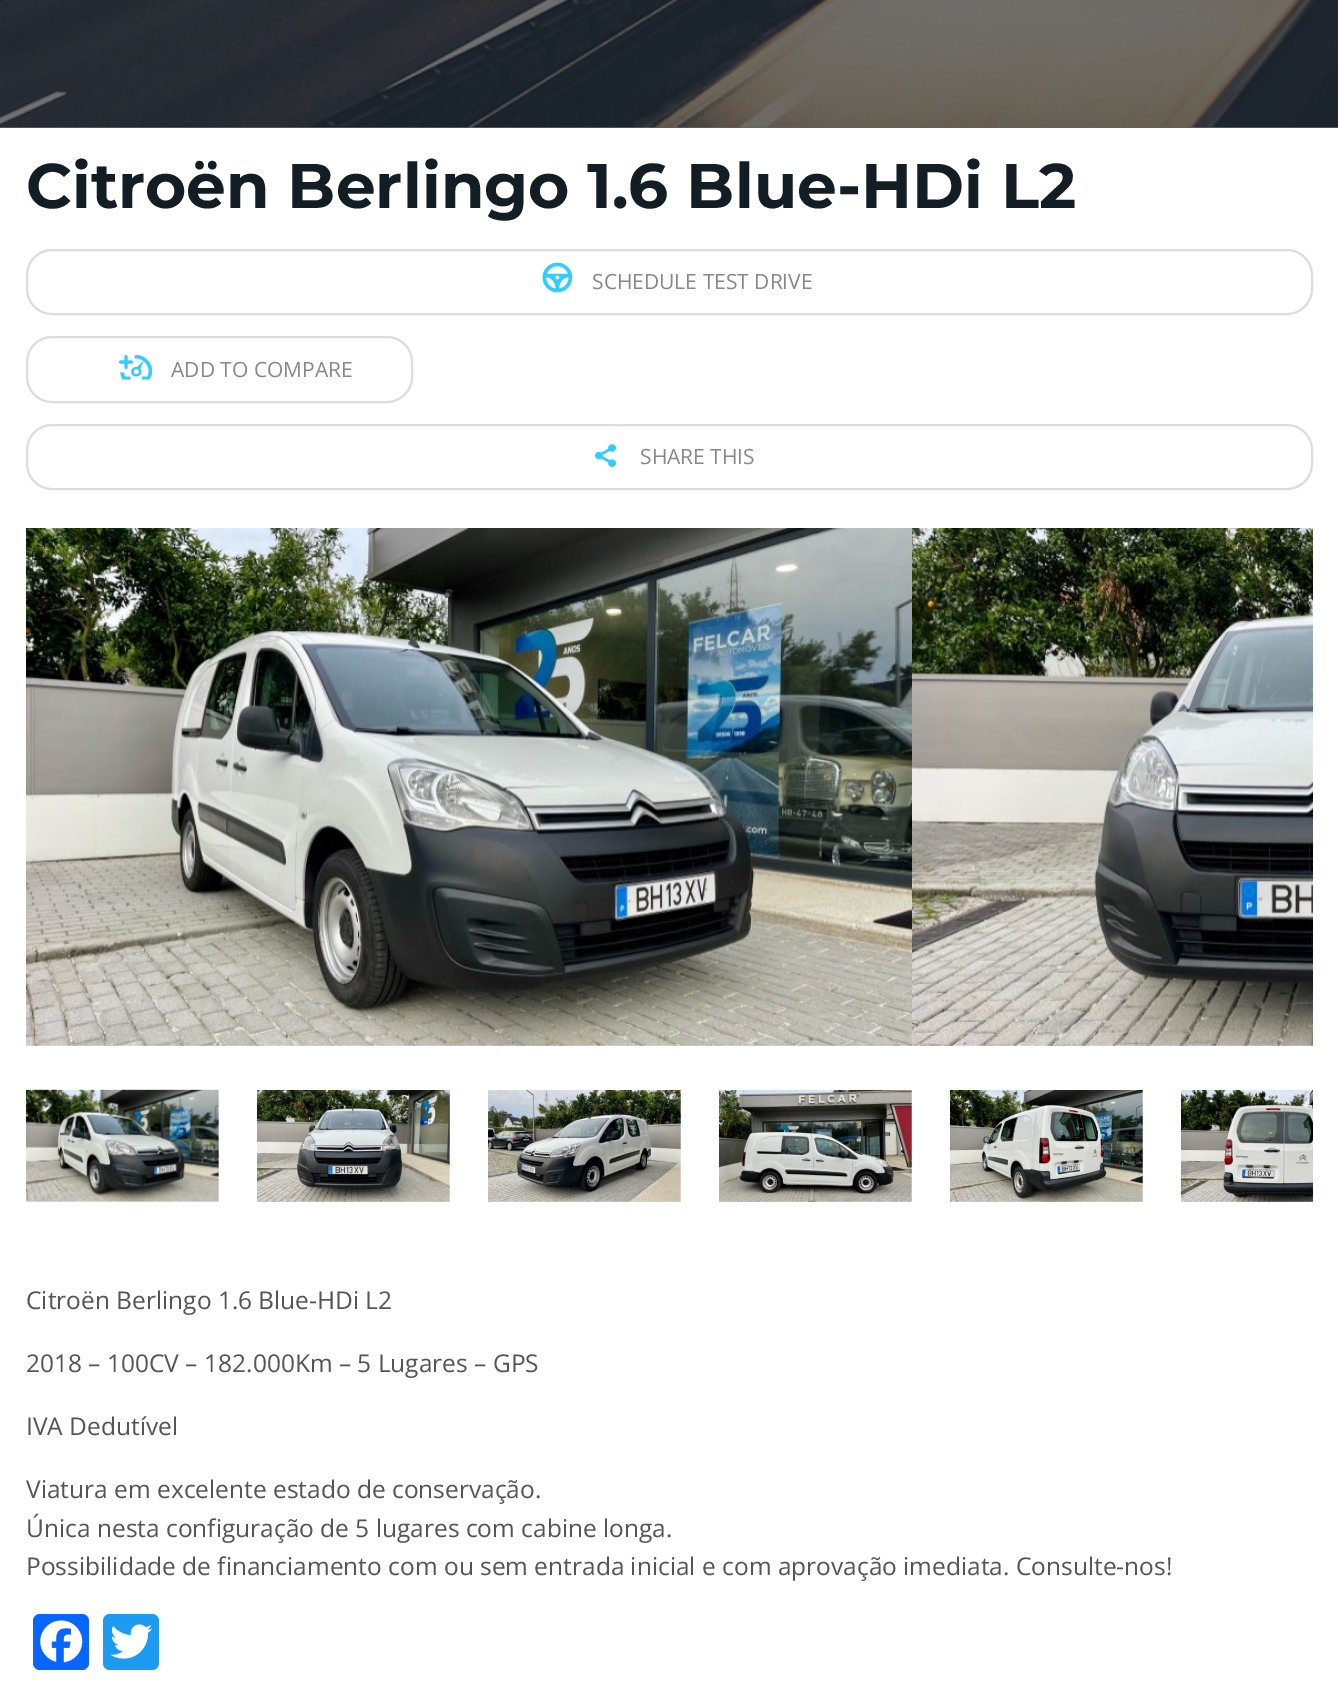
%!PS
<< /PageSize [1338 1686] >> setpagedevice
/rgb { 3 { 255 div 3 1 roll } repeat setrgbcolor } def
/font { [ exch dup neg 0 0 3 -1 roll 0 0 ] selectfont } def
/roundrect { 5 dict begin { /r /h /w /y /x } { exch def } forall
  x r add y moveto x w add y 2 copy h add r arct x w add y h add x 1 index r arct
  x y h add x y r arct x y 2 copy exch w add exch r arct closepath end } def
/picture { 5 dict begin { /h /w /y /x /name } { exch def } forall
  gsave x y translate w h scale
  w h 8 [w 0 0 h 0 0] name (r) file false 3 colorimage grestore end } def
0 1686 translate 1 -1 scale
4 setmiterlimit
255 255 255 rgb
0 0 1338 1686 rectfill
89 99 107 rgb
0 127 1338 1 rectfill
(img/1.rgb) 0 0 1338 128 picture
221 221 221 rgb
2 setlinewidth
27 250 1285 64 25 roundrect stroke
(img/2.rgb) 542 262 31 31 picture
27 337 385 65 25 roundrect stroke
(img/3.rgb) 119 355 34 25 picture
27 425 1285 64 25 roundrect stroke
(img/4.rgb) 595 444 21 23 picture
(img/5.rgb) 26 528 886 518 picture
(img/6.rgb) 912 528 401 518 picture
(img/7.rgb) 26 1089 193 113 picture
(img/8.rgb) 257 1090 193 112 picture
(img/9.rgb) 488 1090 193 112 picture
(img/10.rgb) 719 1090 193 112 picture
(img/11.rgb) 950 1090 193 112 picture
(img/12.rgb) 1181 1090 132 112 picture
8 102 255 rgb
33 1614 56 56 7 roundrect fill
(img/13.rgb) 40 1620 43 43 picture
29 155 240 rgb
103 1614 56 56 7 roundrect fill
(img/14.rgb) 110 1624 43 35 picture
/Montserrat-Bold 63 font
18 30 36 rgb
26 208 moveto (Citroën Berlingo 1.6 Blue-HDi L2) show
/OpenSans-Regular 21 font
136 136 136 rgb
[
  [(SCHEDULE TEST DRIVE) 592 289]
  [(ADD TO COMPARE) 171 377]
  [(SHARE THIS) 640 464]
] { aload pop moveto show } forall
/OpenSans-Regular 24.5 font
85 85 85 rgb
[
  [(Citroën Berlingo 1.6 Blue-HDi L2) 26 1309]
  [(2018 – 100CV – 182.000Km – 5 Lugares – GPS) 26 1372]
  [(IVA Dedutível) 26 1435]
  [(Viatura em excelente estado de conservação.) 26 1498]
  [(Única nesta configuração de 5 lugares com cabine longa.) 26 1537]
  [(Possibilidade de financiamento com ou sem entrada inicial e com aprovação imediata. Consulte-nos!) 26 1575]
] { aload pop moveto show } forall
showpage
